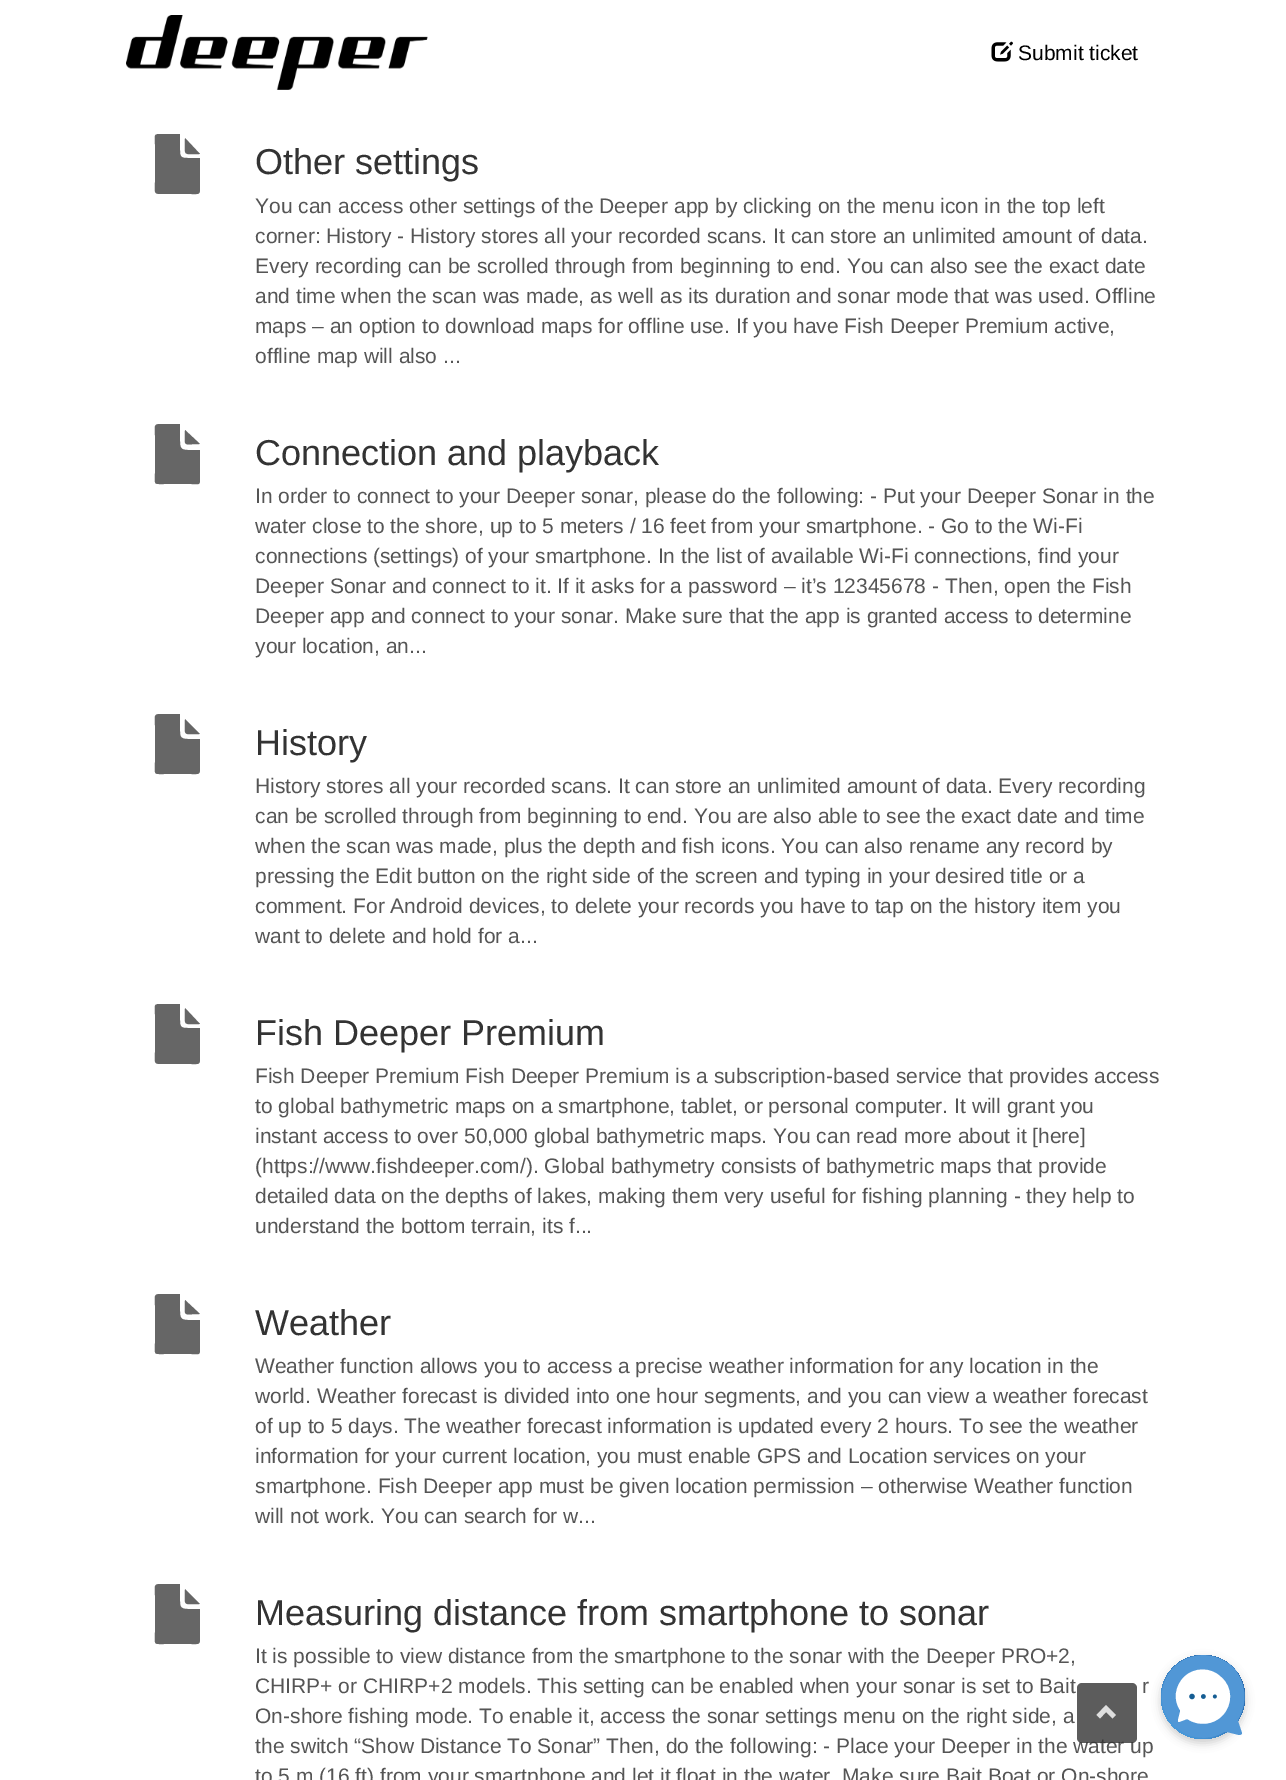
%!PS
<< /PageSize [1286 1780] /PageUsesTransparency true >> setpagedevice
/rgb { 3 { 255 div 3 1 roll } repeat setrgbcolor } def
/font { [ exch dup neg 0 0 3 -1 roll 0 0 ] selectfont } def
/alpha { dup .setfillconstantalpha .setstrokeconstantalpha } def
/circle { newpath 0 360 arc closepath } def
/roundrect { 5 dict begin { /r /h /w /y /x } { exch def } forall
  x r add y moveto x w add y 2 copy h add r arct x w add y h add x 1 index r arct
  x y h add x y r arct x y 2 copy exch w add exch r arct closepath end } def
/shadow { 12 dict begin { /a /b /q /h /w /y /x } { exch def } forall gsave /was 0 def
  9 -2 -9 { dup b mul 4 div /e exch def 1 sub .425 mul 2.718 exch exp 1 add a .99 .min exch div /now exch def
    1 1 now sub 1 was sub div sub alpha /was now def
    w h .min e 2 mul add 0 gt { x e sub y e sub w e 2 mul add h e 2 mul add
      q e add b .6 mul add w h .min 2 div e add .min 0 .max roundrect fill } if } for grestore end } def
/picture { 5 dict begin { /h /w /y /x /name } { exch def } forall
  gsave x y translate w h scale
  w h 8 [w 0 0 h 0 0] name (r) file false 3 colorimage grestore end } def
0 .pushpdf14devicefilter
0 1780 translate 1 -1 scale
4 setmiterlimit
255 255 255 rgb
0 0 1286 1780 rectfill
(img/1.rgb) 126 15 302 75 picture
(img/2.rgb) 991 41 22 21 picture
102 102 102 rgb
180 134 moveto 180 150 lineto 180 157 181 158 188 158 curveto 200 158 lineto 200 186 lineto 200 195 200 194 191 194 curveto 164 194 lineto 153 194 155 194 155 182 curveto 155 145 lineto 155 135 153 134 161 134 curveto closepath 200 154 moveto 182 154 185 157 185 138 curveto closepath fill
180 424 moveto 180 441 lineto 180 448 181 450 188 450 curveto 200 450 lineto 200 477 lineto 200 486 200 484 191 484 curveto 164 484 lineto 153 484 155 485 155 473 curveto 155 436 lineto 155 426 153 424 161 424 curveto closepath 200 444 moveto 182 444 185 448 185 430 curveto closepath fill
180 714 moveto 180 731 lineto 180 737 181 739 188 739 curveto 200 739 lineto 200 766 lineto 200 775 200 774 191 774 curveto 164 774 lineto 153 774 155 775 155 762 curveto 155 726 lineto 155 716 153 714 161 714 curveto closepath 200 734 moveto 182 734 185 737 185 719 curveto closepath fill
180 1004 moveto 180 1020 lineto 180 1027 181 1028 188 1028 curveto 200 1028 lineto 200 1056 lineto 200 1065 200 1064 191 1064 curveto 164 1064 lineto 153 1064 155 1064 155 1052 curveto 155 1015 lineto 155 1005 153 1004 161 1004 curveto closepath 200 1024 moveto 182 1024 185 1027 185 1008 curveto closepath fill
180 1294 moveto 180 1311 lineto 180 1318 181 1320 188 1320 curveto 200 1320 lineto 200 1347 lineto 200 1356 200 1354 191 1354 curveto 164 1354 lineto 153 1354 155 1355 155 1343 curveto 155 1306 lineto 155 1296 153 1294 161 1294 curveto closepath 200 1314 moveto 182 1314 185 1318 185 1300 curveto closepath fill
180 1584 moveto 180 1601 lineto 180 1607 181 1609 188 1609 curveto 200 1609 lineto 200 1636 lineto 200 1645 200 1644 191 1644 curveto 164 1644 lineto 153 1644 155 1645 155 1632 curveto 155 1596 lineto 155 1586 153 1584 161 1584 curveto closepath 200 1604 moveto 182 1604 185 1607 185 1589 curveto closepath fill
0 0 0 rgb
1161 1659 84 84 42 4.5 0.2 shadow
gsave 1203 1697 42 circle clip newpath
<< /ShadingType 2 /ColorSpace /DeviceRGB /Coords [1161 1739 1245 1655] /Extend [true true] /Function << /FunctionType 2 /Domain [0 1] /C0 [0.314 0.643 0.898] /C1 [0.118 0.341 0.6] /N 1 >> >> shfill grestore
81 151 214 rgb
1233 1667 moveto 1216 1651 1189 1651 1173 1668 curveto 1158 1684 1158 1710 1174 1725 curveto 1187 1739 1208 1742 1224 1732 curveto 1225 1732 1226 1732 1227 1732 curveto 1239 1735 lineto 1241 1735 1242 1734 1242 1733 curveto 1238 1721 lineto 1238 1720 1238 1719 1239 1718 curveto 1248 1702 1246 1681 1233 1667 curveto closepath fill
255 255 255 rgb
1222 1716 moveto 1233 1705 1233 1687 1221 1677 curveto 1211 1667 1194 1667 1184 1677 curveto 1175 1686 1173 1700 1180 1710 curveto 1180 1712 lineto 1178 1720 lineto 1178 1721 1178 1722 1179 1722 curveto 1187 1719 lineto 1189 1720 lineto 1199 1726 1213 1725 1222 1716 curveto closepath fill
(img/3.rgb) 1189 1693 28 7 picture
/LiberationSans-Regular 21 font
0 0 0 rgb
1018 60 moveto (Submit ticket) show
/LiberationSans-Regular 36 font
51 51 51 rgb
255 174 moveto (Other settings) show
/LiberationSans-Regular 21 font
85 85 85 rgb
[
  [(You can access other settings of the Deeper app by clicking on the menu icon in the top left) 255 213]
  [(corner: History - History stores all your recorded scans. It can store an unlimited amount of data.) 255 243]
  [(Every recording can be scrolled through from beginning to end. You can also see the exact date) 255 273]
  [(and time when the scan was made, as well as its duration and sonar mode that was used. Offline) 255 303]
  [(maps – an option to download maps for offline use. If you have Fish Deeper Premium active,) 255 333]
  [(offline map will also ...) 255 363]
] { aload pop moveto show } forall
/LiberationSans-Regular 36 font
51 51 51 rgb
255 465 moveto (Connection and playback) show
/LiberationSans-Regular 21 font
85 85 85 rgb
[
  [(In order to connect to your Deeper sonar, please do the following: - Put your Deeper Sonar in the) 255 503]
  [(water close to the shore, up to 5 meters / 16 feet from your smartphone. - Go to the Wi-Fi) 255 533]
  [(connections \(settings\) of your smartphone. In the list of available Wi-Fi connections, find your) 255 563]
  [(Deeper Sonar and connect to it. If it asks for a password – it’s 12345678 - Then, open the Fish) 255 593]
  [(Deeper app and connect to your sonar. Make sure that the app is granted access to determine) 255 623]
  [(your location, an...) 255 653]
] { aload pop moveto show } forall
/LiberationSans-Regular 36 font
51 51 51 rgb
255 755 moveto (History) show
/LiberationSans-Regular 21 font
85 85 85 rgb
[
  [(History stores all your recorded scans. It can store an unlimited amount of data. Every recording) 255 793]
  [(can be scrolled through from beginning to end. You are also able to see the exact date and time) 255 823]
  [(when the scan was made, plus the depth and fish icons. You can also rename any record by) 255 853]
  [(pressing the Edit button on the right side of the screen and typing in your desired title or a) 255 883]
  [(comment. For Android devices, to delete your records you have to tap on the history item you) 255 913]
  [(want to delete and hold for a...) 255 943]
] { aload pop moveto show } forall
/LiberationSans-Regular 36 font
51 51 51 rgb
255 1045 moveto (Fish Deeper Premium) show
/LiberationSans-Regular 21 font
85 85 85 rgb
[
  [(Fish Deeper Premium Fish Deeper Premium is a subscription-based service that provides access) 255 1083]
  [(to global bathymetric maps on a smartphone, tablet, or personal computer. It will grant you) 255 1113]
  [(instant access to over 50,000 global bathymetric maps. You can read more about it [here]) 255 1143]
  [(\(https://www.fishdeeper.com/\). Global bathymetry consists of bathymetric maps that provide) 255 1173]
  [(detailed data on the depths of lakes, making them very useful for fishing planning - they help to) 255 1203]
  [(understand the bottom terrain, its f...) 255 1233]
] { aload pop moveto show } forall
/LiberationSans-Regular 36 font
51 51 51 rgb
255 1335 moveto (Weather) show
/LiberationSans-Regular 21 font
85 85 85 rgb
[
  [(Weather function allows you to access a precise weather information for any location in the) 255 1373]
  [(world. Weather forecast is divided into one hour segments, and you can view a weather forecast) 255 1403]
  [(of up to 5 days. The weather forecast information is updated every 2 hours. To see the weather) 255 1433]
  [(information for your current location, you must enable GPS and Location services on your) 255 1463]
  [(smartphone. Fish Deeper app must be given location permission – otherwise Weather function) 255 1493]
  [(will not work. You can search for w...) 255 1523]
] { aload pop moveto show } forall
/LiberationSans-Regular 36 font
51 51 51 rgb
255 1625 moveto (Measuring distance from smartphone to sonar) show
/LiberationSans-Regular 21 font
85 85 85 rgb
[
  [(It is possible to view distance from the smartphone to the sonar with the Deeper PRO+2,) 255 1663]
  [(CHIRP+ or CHIRP+2 models. This setting can be enabled when your sonar is set to Bait) 255 1693]
  [(r) 1142 1693]
  [(On-shore fishing mode. To enable it, access the sonar settings menu on the right side, a) 255 1723]
  [(the switch “Show Distance To Sonar” Then, do the following: - Place your Deeper in the water up) 255 1753]
  [(to 5 m \(16 ft\) from your smartphone and let it float in the water. Make sure Bait Boat or On-shore) 255 1783]
] { aload pop moveto show } forall
0.8 alpha
51 51 51 rgb
1077 1683 60 60 5 roundrect fill
255 255 255 rgb
1116 1715 moveto 1112.5 1718.5 lineto 1106 1712 lineto 1100 1718.5 lineto 1096.5 1715 lineto 1106 1705 lineto closepath fill
.poppdf14devicefilter showpage
